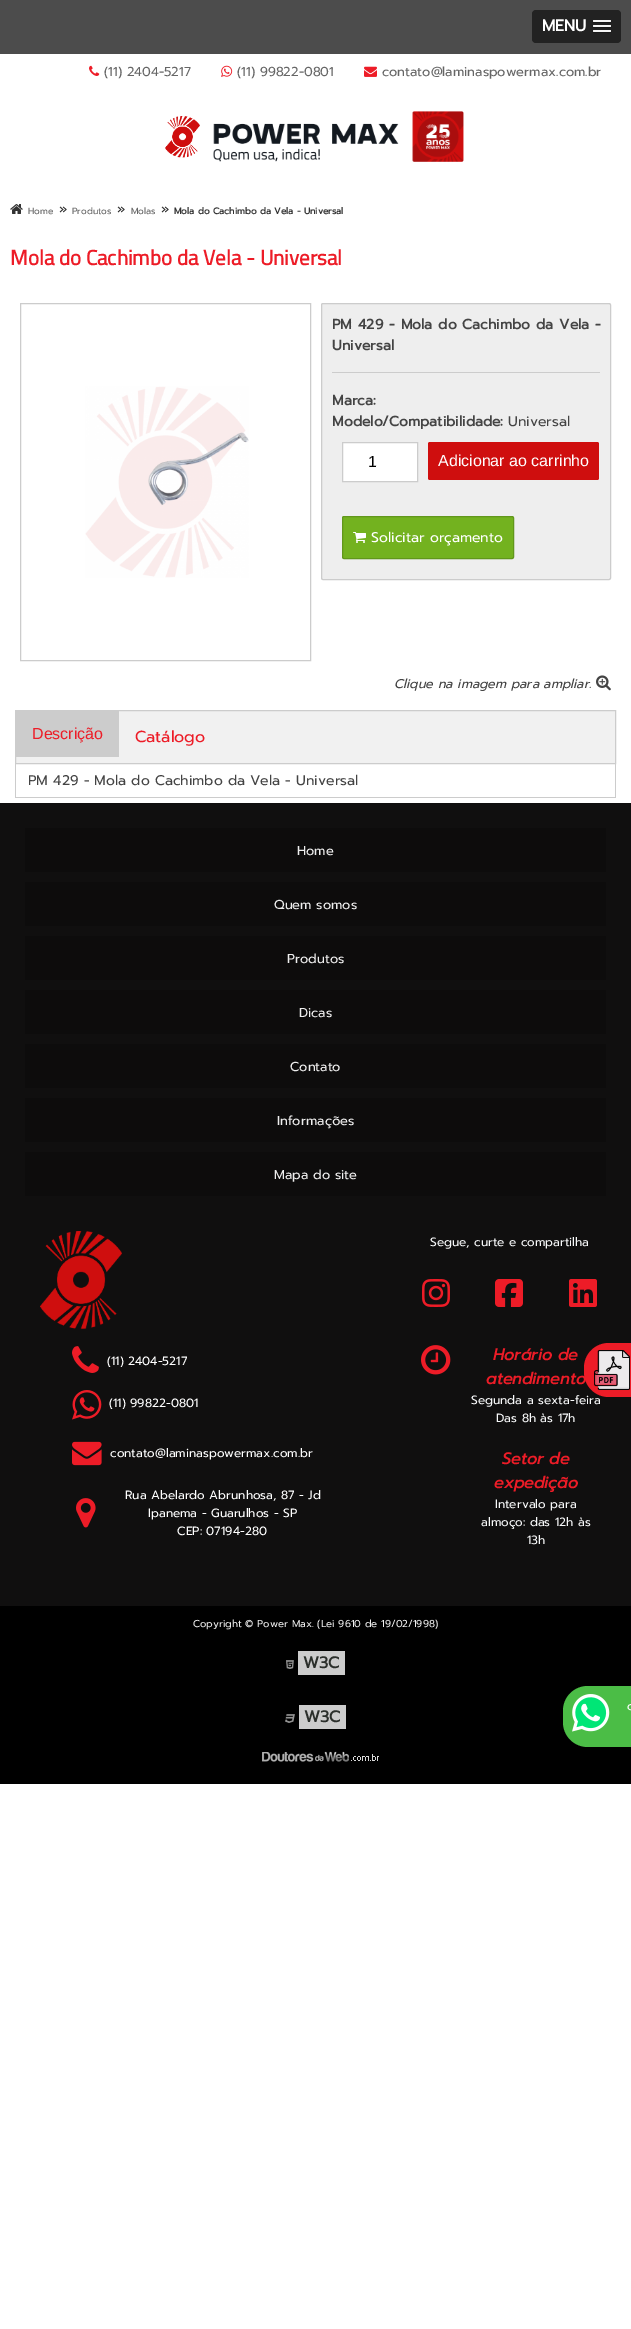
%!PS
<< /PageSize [631 2329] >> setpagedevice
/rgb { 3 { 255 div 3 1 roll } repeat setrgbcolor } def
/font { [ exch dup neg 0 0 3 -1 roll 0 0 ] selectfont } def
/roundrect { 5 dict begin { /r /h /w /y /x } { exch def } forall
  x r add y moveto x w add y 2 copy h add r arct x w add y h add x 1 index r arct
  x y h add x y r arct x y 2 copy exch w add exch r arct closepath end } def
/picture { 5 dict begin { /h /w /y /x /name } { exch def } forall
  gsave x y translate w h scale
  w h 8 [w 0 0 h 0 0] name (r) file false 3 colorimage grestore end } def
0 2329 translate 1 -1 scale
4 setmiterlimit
255 255 255 rgb
0 0 631 2329 rectfill
76 76 76 rgb
0 0 631 54 rectfill
34 34 34 rgb
532 10 89 33 4 roundrect fill
26 26 26 rgb
593 21.5 moveto 592 23.5 596.5 23 596.5 23 curveto 607.5 23 lineto 607.5 23 612 23.5 611 21.5 curveto 610 22.5 603.5 22 602 22 curveto 600.5 22 594 22.5 593 21.5 curveto closepath fill
245 245 245 rgb
593 20 18 2 1 roundrect fill
26 26 26 rgb
593 26.5 moveto 592 28.5 596.5 28 596.5 28 curveto 607.5 28 lineto 607.5 28 612 28.5 611 26.5 curveto 610 27.5 603.5 27 602 27 curveto 600.5 27 594 27.5 593 26.5 curveto closepath fill
245 245 245 rgb
593 25 18 2 1 roundrect fill
26 26 26 rgb
593 31.5 moveto 592 33.5 596.5 33 596.5 33 curveto 607.5 33 lineto 607.5 33 612 33.5 611 31.5 curveto 610 32.5 603.5 32 602 32 curveto 600.5 32 594 32.5 593 31.5 curveto closepath fill
245 245 245 rgb
593 30 18 2 1 roundrect fill
(img/1.rgb) 89 65 11 11 picture
(img/2.rgb) 221 65 12 12 picture
(img/3.rgb) 364 66 13 11 picture
(img/4.rgb) 165 116 35 42 picture
(img/5.rgb) 213 111 251 51 picture
(img/6.rgb) 10 204 13 10 picture
204 204 204 rgb
20.5 303.5 290 357 rectstroke
(img/7.rgb) 85 386 164 192 picture
238 238 238 rgb
321.5 303.5 289 276 1.5 roundrect gsave fill grestore
204 204 204 rgb
stroke
332 372 268 1 rectfill
255 255 255 rgb
342.5 442.5 moveto 417.5 442.5 lineto 417.5 481.5 lineto 342.5 481.5 lineto closepath gsave fill grestore
204 204 204 rgb
stroke
207 14 14 rgb
428 442 171 38 2 roundrect fill
115 178 31 rgb
342.5 516.5 171 42 1.5 roundrect gsave fill grestore
97 151 27 rgb
stroke
(img/8.rgb) 353 532 13 11 picture
(img/9.rgb) 596 675 15 16 picture
241 241 241 rgb
15.5 710.5 moveto 615.5 710.5 lineto 615.5 763.5 lineto 15.5 763.5 lineto closepath gsave fill grestore
204 204 204 rgb
stroke
[
  [16 711 103 46 204 204 204]
  [615 764 1 34 204 204 204]
  [15 797 601 1 204 204 204]
  [15 764 1 34 204 204 204]
  [0 803 631 803 16 15 15]
  [25 828 581 44 13 12 12]
  [25 882 581 44 13 12 12]
  [25 936 581 44 13 12 12]
  [25 990 581 44 13 12 12]
  [25 1044 581 44 13 12 12]
  [25 1098 581 44 13 12 12]
  [25 1152 581 44 13 12 12]
] { aload pop rgb rectfill } forall
(img/10.rgb) 40 1231 82 99 picture
(img/11.rgb) 72 1346 27 27 picture
(img/12.rgb) 72 1390 30 30 picture
(img/13.rgb) 72 1441 30 25 picture
(img/14.rgb) 76 1498 20 30 picture
(img/15.rgb) 422 1279 28 28 picture
(img/16.rgb) 495 1279 28 28 picture
(img/17.rgb) 569 1279 28 28 picture
(img/18.rgb) 421 1345 30 30 picture
0 0 0 rgb
0 1606 631 178 rectfill
(img/20.rgb) 286 1660 8 9 picture
204 204 204 rgb
298 1651 47 24 rectfill
(img/21.rgb) 285 1714 10 9 picture
299 1705 47 24 rectfill
(img/22.rgb) 262 1751 117 11 picture
75 189 70 rgb
588 1686 moveto 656 1686 lineto 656 1747 lineto 588 1747 lineto 574 1747 563 1736 563 1722 curveto 563 1711 lineto 563 1697 574 1686 588 1686 curveto closepath fill
(img/23.rgb) 572 1694 38 38 picture
/Prompt-Bold 16 font
255 255 255 rgb
542 31 moveto (MENU) show
/Prompt-Regular 13 font
102 102 102 rgb
[
  [(\(11\) 2404-5217) 104 76]
  [(\(11\) 99822-0801) 237 76]
  [(contato@laminaspowermax.com.br) 382 76]
] { aload pop moveto show } forall
/Prompt-Regular 9 font
28 214 moveto (Home) show
/Prompt-Regular 14 font
51 51 51 rgb
59 214 moveto (») show
/Prompt-Regular 9 font
102 102 102 rgb
72 214 moveto (Produtos) show
/Prompt-Regular 14 font
51 51 51 rgb
117 214 moveto (») show
/Prompt-Regular 9 font
102 102 102 rgb
131 214 moveto (Molas) show
/Prompt-Regular 14 font
51 51 51 rgb
161 214 moveto (») show
/Prompt-Bold 9 font
174 214 moveto (Mola do Cachimbo da Vela - Universal) show
/TitilliumWeb-Bold 21 font
237 28 39 rgb
10 265 moveto (Mola do Cachimbo da Vela - Universal) show
/Prompt-Bold 14 font
68 68 68 rgb
332 329 moveto 0.75 0 32 (PM 429 - Mola do Cachimbo da Vela -) widthshow
[
  [(Universal) 332 350]
  [(Marca:) 332 405]
  [(Modelo/Compatibilidade:) 332 426]
] { aload pop moveto show } forall
/Prompt-Regular 14 font
508 426 moveto (Universal) show
/LiberationSans-Regular 16 font
0 0 0 rgb
368 467 moveto (1) show
255 255 255 rgb
438 466 moveto (Adicionar ao carrinho) show
/Prompt-Regular 14 font
371 542 moveto (Solicitar orçamento) show
/Prompt-Italic 12.75 font
68 68 68 rgb
394 688 moveto (Clique na imagem para ampliar.) show
/LiberationSans-Regular 16 font
237 28 39 rgb
32 739 moveto (Descrição) show
/Prompt-Regular 16 font
135 742 moveto (Catálogo) show
/Prompt-Regular 14 font
68 68 68 rgb
28 785 moveto (PM 429 - Mola do Cachimbo da Vela - Universal) show
/Prompt-Regular 13 font
238 238 238 rgb
[
  [(Home) 297 855]
  [(Quem somos) 274 909]
  [(Produtos) 287 963]
  [(Dicas) 299 1017]
  [(Contato) 290 1071]
  [(Informações) 277 1125]
  [(Mapa do site) 274 1179]
] { aload pop moveto show } forall
/Prompt-Regular 12 font
255 255 255 rgb
[
  [(\(11\) 2404-5217) 107 1365]
  [(\(11\) 99822-0801) 109 1407]
  [(contato@laminaspowermax.com.br) 110 1457]
  [(Rua Abelardo Abrunhosa, 87 - Jd) 125 1499]
  [(Ipanema - Guarulhos - SP) 148 1517]
  [(CEP: 07194-280) 177 1535]
] { aload pop moveto show } forall
248 249 250 rgb
430 1246 moveto (Segue, curte e compartilha) show
/Prompt-BoldItalic 16 font
237 28 39 rgb
493 1360 moveto (Horário de) show
486 1384 moveto (atendimento) show
/Prompt-Regular 12 font
248 249 250 rgb
471 1404 moveto (Segunda a sexta-feira) show
496 1422 moveto (Das 8h às 17h) show
/Prompt-BoldItalic 16 font
237 28 39 rgb
502 1464 moveto (Setor de) show
494 1488 moveto (expedição) show
/Prompt-Regular 12 font
248 249 250 rgb
[
  [(Intervalo para) 495 1508]
  [(almoço: das 12h às) 481 1526]
  [(13h) 527 1544]
] { aload pop moveto show } forall
237 28 39 rgb
609 1343 moveto 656 1343 lineto 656 1397 lineto 609 1397 lineto 595 1397 584 1386 584 1372 curveto 584 1368 lineto 584 1354 595 1343 609 1343 curveto closepath fill
(img/19.rgb) 594 1350 36 40 picture
/Prompt-Regular 10 font
238 238 238 rgb
193 1627 moveto (Copyright © Power Max. \(Lei 9610 de 19/02/1998\)) show
/Prompt-Bold 16 font
43 47 43 rgb
303 1668 moveto (W3C) show
304 1722 moveto (W3C) show
/Prompt-Regular 12 font
255 255 255 rgb
627 1710 moveto (c) show
showpage
